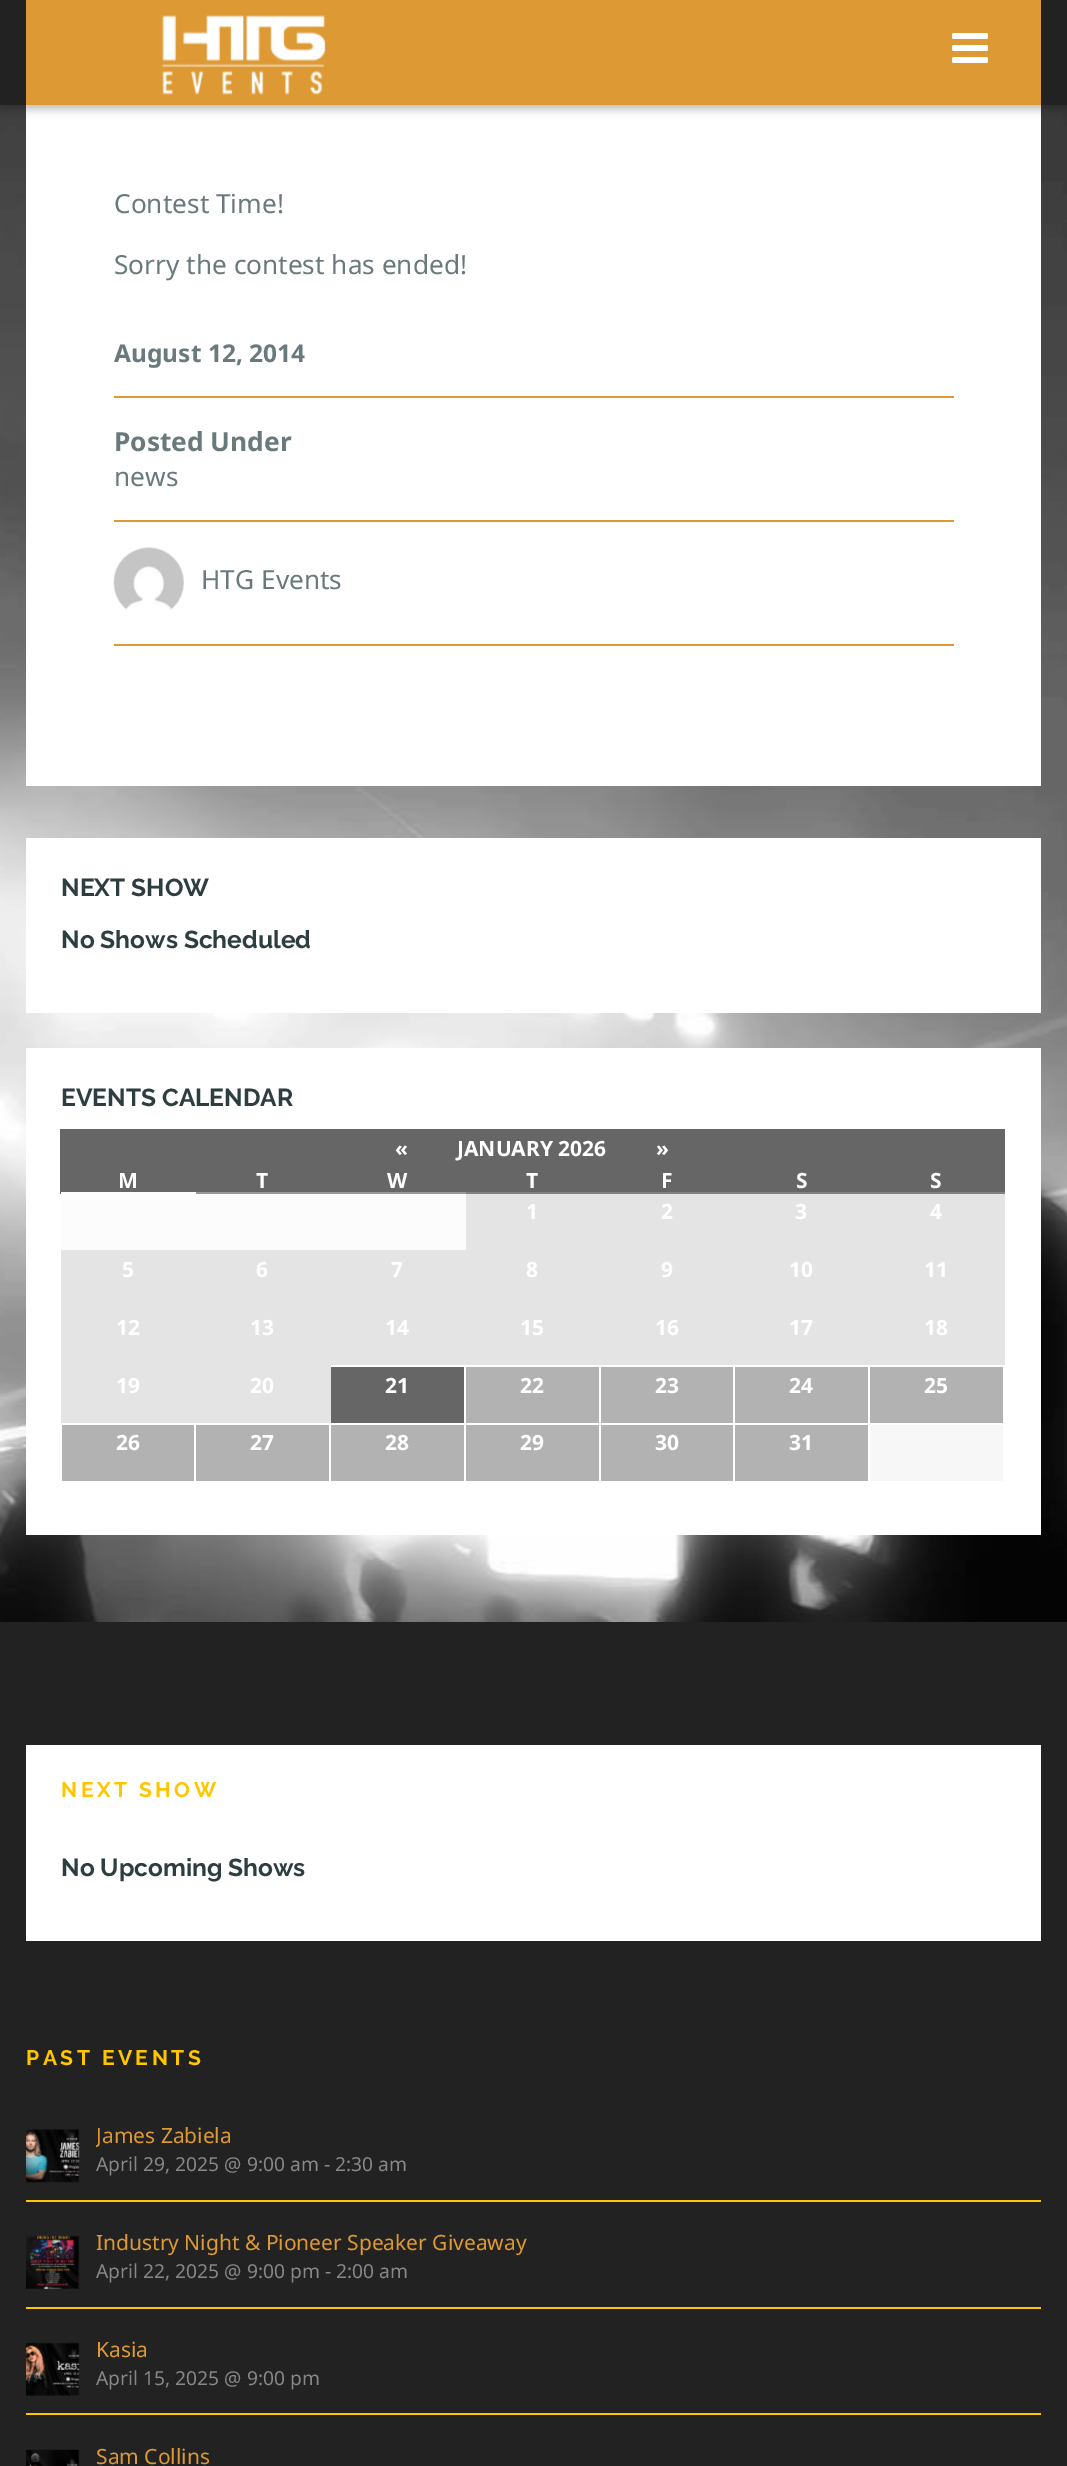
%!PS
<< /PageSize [1067 2466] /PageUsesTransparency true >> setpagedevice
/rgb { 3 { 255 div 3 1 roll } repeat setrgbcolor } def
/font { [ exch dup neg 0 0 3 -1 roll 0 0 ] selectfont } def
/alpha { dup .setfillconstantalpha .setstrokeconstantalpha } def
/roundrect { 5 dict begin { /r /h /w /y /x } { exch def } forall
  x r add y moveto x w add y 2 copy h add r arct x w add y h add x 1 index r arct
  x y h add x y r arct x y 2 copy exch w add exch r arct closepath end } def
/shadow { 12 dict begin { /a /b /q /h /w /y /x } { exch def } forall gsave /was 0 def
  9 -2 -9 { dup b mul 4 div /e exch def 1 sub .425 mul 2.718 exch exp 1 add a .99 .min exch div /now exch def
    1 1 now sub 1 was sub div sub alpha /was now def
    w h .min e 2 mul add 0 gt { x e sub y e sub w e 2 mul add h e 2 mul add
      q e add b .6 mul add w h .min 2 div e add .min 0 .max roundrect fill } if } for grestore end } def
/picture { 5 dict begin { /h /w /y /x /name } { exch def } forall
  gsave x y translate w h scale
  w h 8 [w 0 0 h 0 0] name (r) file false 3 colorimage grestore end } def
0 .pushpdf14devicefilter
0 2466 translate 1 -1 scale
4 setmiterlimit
255 255 255 rgb
0 0 1067 2466 rectfill
(img/1.rgb) 0 105 1067 1517 picture
26 105 1015 681 rectfill
0 0 0 rgb
0 4 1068 105 0 4.5 0.26 shadow
34 34 34 rgb
0 0 1067 105 rectfill
221 153 51 rgb
26 0 1015 105 rectfill
(img/2.rgb) 162 15 164 80 picture
(img/3.rgb) 952 33 36 30 picture
[
  [114 396 840 2 221 153 51]
  [114 520 840 2 221 153 51]
  [114 644 840 2 221 153 51]
] { aload pop rgb rectfill } forall
(img/4.rgb) 113 547 71 63 picture
[
  [26 838 1015 175 255 255 255]
  [26 1048 1015 487 255 255 255]
  [62 1131 943 38 102 102 102]
  [60 1129 945 2 102 102 102]
  [60 1169 945 2 102 102 102]
  [60 1129 2 65 102 102 102]
  [62 1171 941 21 102 102 102]
  [1003 1169 2 25 102 102 102]
  [194 1192 811 2 102 102 102]
  [61 1192 135 58 252 252 252]
] { aload pop rgb rectfill } forall
0.35 alpha
[
  [196 1192 135 58 247 247 247]
  [331 1192 135 58 247 247 247]
  [466 1192 134 58 178 178 178]
  [600 1192 135 58 178 178 178]
  [735 1192 135 58 178 178 178]
  [870 1192 135 58 178 178 178]
] { aload pop rgb rectfill } forall
1 alpha
[
  [61 1250 944 57 228 228 228]
  [61 1307 944 58 228 228 228]
  [61 1365 270 58 228 228 228]
  [331 1367 133 56 102 102 102]
  [466 1367 133 56 178 178 178]
  [601 1367 132 56 178 178 178]
  [735 1367 133 56 178 178 178]
  [870 1367 133 56 178 178 178]
  [62 1425 132 56 178 178 178]
  [196 1425 133 56 178 178 178]
  [331 1425 133 56 178 178 178]
  [466 1425 133 56 178 178 178]
  [601 1425 132 56 178 178 178]
  [735 1425 133 56 178 178 178]
  [870 1425 133 56 247 247 247]
  [0 1622 1067 844 34 34 34]
  [26 1745 1015 196 255 255 255]
  [26 2200 1015 2 255 198 0]
] { aload pop rgb rectfill } forall
(img/5.rgb) 26 2129 54 54 picture
26 2307 1015 2 rectfill
(img/6.rgb) 26 2235 54 54 picture
26 2413 1015 2 rectfill
(img/7.rgb) 26 2342 54 54 picture
(img/8.rgb) 26 2449 54 17 picture
/NotoSans-Regular 26.25 font
106 122 124 rgb
114 213 moveto (Contest Time!) show
114 274 moveto (Sorry the contest has ended!) show
/NotoSans-Bold 24.5 font
114 362 moveto (August 12, 2014) show
/NotoSans-Bold 26.25 font
114 451 moveto (Posted Under) show
/NotoSans-Regular 26.25 font
114 486 moveto (news) show
201 589 moveto (HTG Events) show
/Raleway-Bold 24.5 font
46 62 64 rgb
[
  [(NEXT SHOW) 61 896]
  [(No Shows Scheduled) 61 948]
  [(EVENTS CALENDAR) 61 1106]
] { aload pop moveto show } forall
/NotoSans-Bold 21 font
255 255 255 rgb
[
  [(«) 395 1156]
  [(JANUARY 2026) 457 1156]
  [(») 656 1156]
  [(M) 118 1188]
  [(T) 256 1188]
  [(W) 387 1188]
  [(T) 526 1188]
  [(F) 661 1188]
  [(S) 796 1188]
  [(S) 930 1188]
  [(1) 526 1219]
  [(2) 661 1219]
  [(3) 795 1219]
  [(4) 930 1219]
  [(5) 122 1277]
  [(6) 256 1277]
  [(7) 391 1277]
  [(8) 526 1277]
  [(9) 661 1277]
  [(10) 789 1277]
  [(11) 924 1277]
  [(12) 116 1335]
  [(13) 250 1335]
  [(14) 385 1335]
  [(15) 520 1335]
  [(16) 655 1335]
  [(17) 789 1335]
  [(18) 924 1335]
  [(19) 116 1393]
  [(20) 250 1393]
  [(21) 385 1393]
  [(22) 520 1393]
  [(23) 655 1393]
  [(24) 789 1393]
  [(25) 924 1393]
  [(26) 116 1450]
  [(27) 250 1450]
  [(28) 385 1450]
  [(29) 520 1450]
  [(30) 655 1450]
  [(31) 789 1450]
] { aload pop moveto show } forall
/Raleway-Bold 21 font
255 198 0 rgb
61 1797 moveto 3.5 0 (NEXT SHOW) ashow
/Raleway-Bold 24.5 font
46 62 64 rgb
61 1876 moveto (No Upcoming Shows) show
/Raleway-Bold 21 font
255 198 0 rgb
26 2065 moveto 3.5 0 (PAST EVENTS) ashow
gsave
96 2121 945 30 rectclip
/NotoSans-Regular 21 font
221 153 51 rgb
96 2143 moveto (James Zabiela) show
grestore
/NotoSans-Regular 19.25 font
136 136 136 rgb
96 2171 moveto (April 29, 2025 @ 9:00 am - 2:30 am) show
/NotoSans-Regular 21 font
221 153 51 rgb
96 2250 moveto (Industry Night & Pioneer Speaker Giveaway) show
/NotoSans-Regular 19.25 font
136 136 136 rgb
96 2278 moveto (April 22, 2025 @ 9:00 pm - 2:00 am) show
/NotoSans-Regular 21 font
221 153 51 rgb
96 2357 moveto (Kasia) show
/NotoSans-Regular 19.25 font
136 136 136 rgb
96 2385 moveto (April 15, 2025 @ 9:00 pm) show
/NotoSans-Regular 21 font
221 153 51 rgb
96 2464 moveto (Sam Collins) show
.poppdf14devicefilter showpage
